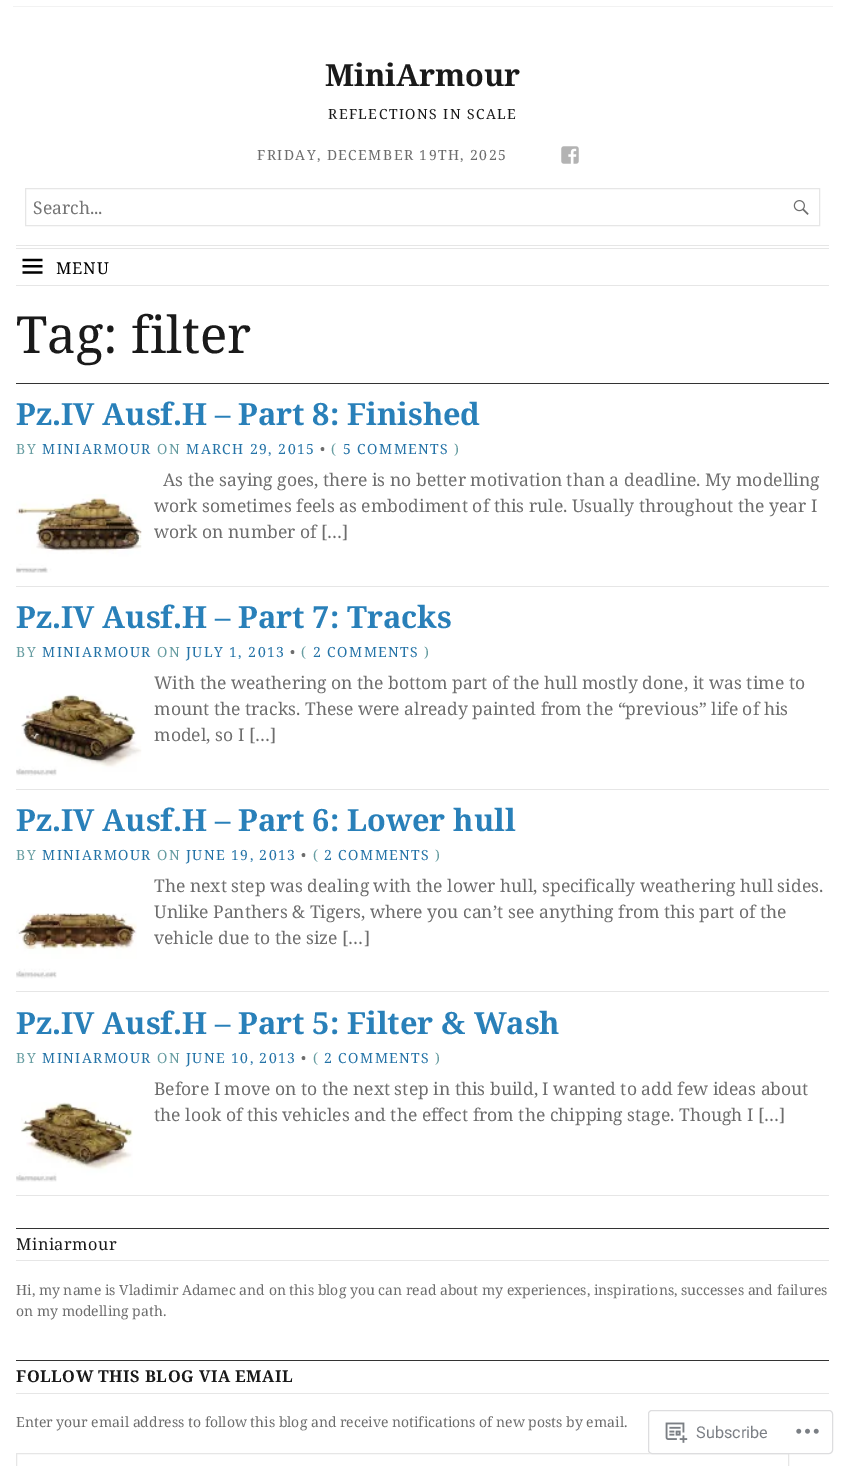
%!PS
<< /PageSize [844 1466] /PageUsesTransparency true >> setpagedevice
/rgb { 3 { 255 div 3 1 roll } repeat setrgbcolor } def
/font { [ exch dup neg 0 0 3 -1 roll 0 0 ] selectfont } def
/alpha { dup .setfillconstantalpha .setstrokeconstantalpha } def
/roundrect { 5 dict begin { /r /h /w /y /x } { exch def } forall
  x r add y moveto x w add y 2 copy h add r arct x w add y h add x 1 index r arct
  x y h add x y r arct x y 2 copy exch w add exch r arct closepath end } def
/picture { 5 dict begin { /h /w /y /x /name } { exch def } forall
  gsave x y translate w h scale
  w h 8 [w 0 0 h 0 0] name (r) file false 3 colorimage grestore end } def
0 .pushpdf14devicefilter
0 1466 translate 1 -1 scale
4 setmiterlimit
255 255 255 rgb
0 0 844 1466 rectfill
242 242 242 rgb
13 6 820 1 rectfill
(img/1.rgb) 561 146 18 18 picture
230 230 230 rgb
25.5 188.5 794 37 rectstroke
(img/2.rgb) 793 200 16 15 picture
[
  [16 245 813 1 230 230 230]
  [16 248 813 1 230 230 230]
  [16 285 813 1 230 230 230]
] { aload pop rgb rectfill } forall
(img/3.rgb) 22 258 21 16 picture
51 51 51 rgb
16 383 813 1 rectfill
230 230 230 rgb
16 586 813 1 rectfill
(img/4.rgb) 16 494 126 79 picture
16 789 813 1 rectfill
(img/5.rgb) 16 694 126 82 picture
16 991 813 1 rectfill
(img/6.rgb) 16 913 121 66 picture
16 1195 813 1 rectfill
(img/7.rgb) 16 1102 117 80 picture
[
  [16 1228 813 1 51 51 51]
  [16 1260 813 1 230 230 230]
  [16 1360 813 1 51 51 51]
  [16 1393 813 1 230 230 230]
] { aload pop rgb rectfill } forall
16.5 1453.5 772 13 rectstroke
0.98 alpha
255 255 255 rgb
648 1410 185 44 4 roundrect fill
220 220 222 rgb
648.5 1410.5 184 43 3.5 roundrect stroke
1 alpha
(img/8.rgb) 665 1422 23 21 picture
(img/9.rgb) 796 1428 23 6 picture
/NotoSerif-Bold 30.6 font
26 26 26 rgb
325 86 moveto (MiniArmour) show
/NotoSerif-Regular 14 font
328 119 moveto 1.4 0 (REFLECTIONS IN SCALE) ashow
109 109 109 rgb
257 160 moveto 1.4 0 (FRIDAY, DECEMBER 19TH, 2025) ashow
/NotoSerif-Regular 17.5 font
117 117 117 rgb
33 214 moveto (Search...) show
/NotoSerif-Regular 16.3 font
0 0 0 rgb
56 274 moveto 1 0 (MENU) ashow
/NotoSerif-Regular 51 font
26 26 26 rgb
16 353 moveto (Tag: filter) show
/NotoSerif-Bold 30.6 font
41 128 185 rgb
16 425 moveto (Pz.IV Ausf.H – Part 8: Finished) show
/NotoSerif-Regular 14 font
103 157 161 rgb
16 454 moveto 1.4 0 (BY) ashow
36 115 167 rgb
42 454 moveto 1.4 0 (MINIARMOUR) ashow
103 157 161 rgb
157 454 moveto 1.4 0 (ON) ashow
36 115 167 rgb
186 454 moveto 1.4 0 (MARCH 29, 2015) ashow
109 109 109 rgb
320 454 moveto 1.4 0 (•) ashow
103 157 161 rgb
331 454 moveto 1.4 0 (\() ashow
36 115 167 rgb
343 454 moveto 1.4 0 (5 COMMENTS) ashow
103 157 161 rgb
454 454 moveto 1.4 0 (\)) ashow
/NotoSerif-Regular 17.5 font
109 109 109 rgb
[
  [(As the saying goes, there is no better motivation than a deadline. My modelling) 163 486]
  [(work sometimes feels as embodiment of this rule. Usually throughout the year I) 154 512]
  [(work on number of […]) 154 538]
] { aload pop moveto show } forall
/NotoSerif-Bold 30.6 font
41 128 185 rgb
16 628 moveto (Pz.IV Ausf.H – Part 7: Tracks) show
/NotoSerif-Regular 14 font
103 157 161 rgb
16 657 moveto 1.4 0 (BY) ashow
36 115 167 rgb
42 657 moveto 1.4 0 (MINIARMOUR) ashow
103 157 161 rgb
157 657 moveto 1.4 0 (ON) ashow
36 115 167 rgb
186 657 moveto 1.4 0 (JULY 1, 2013) ashow
109 109 109 rgb
290 657 moveto 1.4 0 (•) ashow
103 157 161 rgb
301 657 moveto 1.4 0 (\() ashow
36 115 167 rgb
313 657 moveto 1.4 0 (2 COMMENTS) ashow
103 157 161 rgb
424 657 moveto 1.4 0 (\)) ashow
/NotoSerif-Regular 17.5 font
109 109 109 rgb
[
  [(With the weathering on the bottom part of the hull mostly done, it was time to) 154 689]
  [(mount the tracks. These were already painted from the “previous” life of his) 154 715]
  [(model, so I […]) 154 741]
] { aload pop moveto show } forall
/NotoSerif-Bold 30.6 font
41 128 185 rgb
16 831 moveto (Pz.IV Ausf.H – Part 6: Lower hull) show
/NotoSerif-Regular 14 font
103 157 161 rgb
16 860 moveto 1.4 0 (BY) ashow
36 115 167 rgb
42 860 moveto 1.4 0 (MINIARMOUR) ashow
103 157 161 rgb
157 860 moveto 1.4 0 (ON) ashow
36 115 167 rgb
186 860 moveto 1.4 0 (JUNE 19, 2013) ashow
109 109 109 rgb
301 860 moveto 1.4 0 (•) ashow
103 157 161 rgb
313 860 moveto 1.4 0 (\() ashow
36 115 167 rgb
324 860 moveto 1.4 0 (2 COMMENTS) ashow
103 157 161 rgb
435 860 moveto 1.4 0 (\)) ashow
/NotoSerif-Regular 17.5 font
109 109 109 rgb
[
  [(The next step was dealing with the lower hull, specifically weathering hull sides.) 154 892]
  [(Unlike Panthers & Tigers, where you can’t see anything from this part of the) 154 918]
  [(vehicle due to the size […]) 154 944]
] { aload pop moveto show } forall
/NotoSerif-Bold 30.6 font
41 128 185 rgb
16 1034 moveto (Pz.IV Ausf.H – Part 5: Filter & Wash) show
/NotoSerif-Regular 14 font
103 157 161 rgb
16 1063 moveto 1.4 0 (BY) ashow
36 115 167 rgb
42 1063 moveto 1.4 0 (MINIARMOUR) ashow
103 157 161 rgb
157 1063 moveto 1.4 0 (ON) ashow
36 115 167 rgb
186 1063 moveto 1.4 0 (JUNE 10, 2013) ashow
109 109 109 rgb
301 1063 moveto 1.4 0 (•) ashow
103 157 161 rgb
313 1063 moveto 1.4 0 (\() ashow
36 115 167 rgb
324 1063 moveto 1.4 0 (2 COMMENTS) ashow
103 157 161 rgb
435 1063 moveto 1.4 0 (\)) ashow
/NotoSerif-Regular 17.5 font
109 109 109 rgb
154 1095 moveto (Before I move on to the next step in this build, I wanted to add few ideas about) show
154 1121 moveto (the look of this vehicles and the effect from the chipping stage. Though I […]) show
/NotoSerif-Regular 16.3 font
26 26 26 rgb
16 1250 moveto 0.5 0 (Miniarmour) ashow
/NotoSerif-Regular 14 font
109 109 109 rgb
16 1295 moveto (Hi, my name is Vladimir Adamec and on this blog you can read about my experiences, inspirations, successes and failures) show
16 1316 moveto (on my modelling path.) show
/NotoSerif-Bold 16.3 font
26 26 26 rgb
16 1382 moveto 0.5 0 (FOLLOW THIS BLOG VIA EMAIL) ashow
/NotoSerif-Regular 14 font
109 109 109 rgb
16 1427 moveto (Enter your email address to follow this blog and receive notifications of new posts by email.) show
/Roboto-Regular 16.25 font
123 127 133 rgb
696 1438 moveto (Subscribe) show
.poppdf14devicefilter showpage
